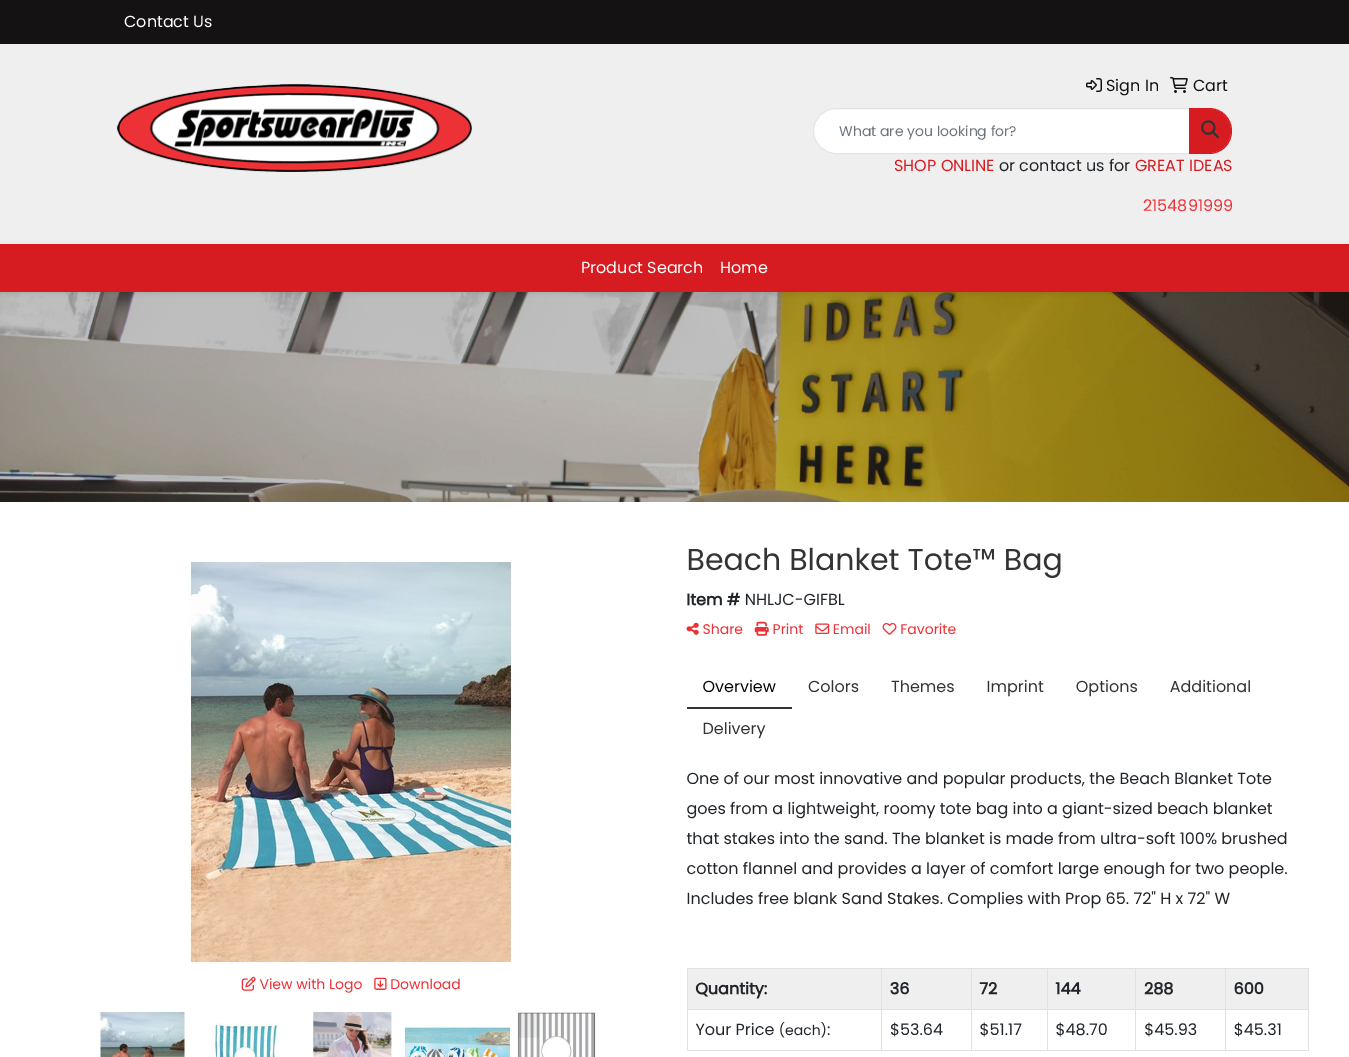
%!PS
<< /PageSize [1349 1057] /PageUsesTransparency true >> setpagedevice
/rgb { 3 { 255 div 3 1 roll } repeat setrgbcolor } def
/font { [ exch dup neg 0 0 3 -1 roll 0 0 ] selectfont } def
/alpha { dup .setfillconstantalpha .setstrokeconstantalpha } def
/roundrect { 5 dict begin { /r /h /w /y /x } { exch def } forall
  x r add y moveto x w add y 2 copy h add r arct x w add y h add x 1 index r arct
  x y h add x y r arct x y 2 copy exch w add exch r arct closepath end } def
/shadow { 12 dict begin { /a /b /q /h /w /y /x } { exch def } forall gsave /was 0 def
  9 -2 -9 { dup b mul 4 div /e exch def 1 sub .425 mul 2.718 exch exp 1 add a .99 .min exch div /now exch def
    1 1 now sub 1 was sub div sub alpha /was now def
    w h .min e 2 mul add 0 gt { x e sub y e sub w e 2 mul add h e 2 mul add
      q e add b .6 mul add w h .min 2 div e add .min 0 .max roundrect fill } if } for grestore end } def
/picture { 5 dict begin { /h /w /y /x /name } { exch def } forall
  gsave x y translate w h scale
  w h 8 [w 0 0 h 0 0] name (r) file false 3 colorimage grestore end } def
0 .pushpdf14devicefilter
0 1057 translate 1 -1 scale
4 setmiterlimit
255 255 255 rgb
0 0 1349 1057 rectfill
240 239 239 rgb
0 44 1349 200 rectfill
20 18 18 rgb
0 0 1349 44 rectfill
(img/1.rgb) 117 84 355 88 picture
(img/2.rgb) 1086 78 16 14 picture
(img/3.rgb) 1170 77 18 16 picture
255 255 255 rgb
836 108.5 moveto 1189.5 108.5 lineto 1189.5 153.5 lineto 836 153.5 lineto 823.5 153.5 813.5 143.5 813.5 131 curveto 813.5 118.5 823.5 108.5 836 108.5 curveto closepath gsave fill grestore
228 228 228 rgb
stroke
214 28 33 rgb
1189 109 moveto 1209 109 lineto 1221 109 1231 119 1231 131 curveto 1231 143 1221 153 1209 153 curveto 1189 153 lineto closepath fill
1189 108 moveto 1209 108 lineto 1222 108 1232 118 1232 131 curveto 1232 144 1222 154 1209 154 curveto 1189 154 lineto closepath 1189 109 moveto 1209 109 lineto 1221 109 1231 119 1231 131 curveto 1231 143 1221 153 1209 153 curveto 1189 153 lineto closepath eofill
(img/4.rgb) 1201 120 18 19 picture
(img/5.rgb) 0 292 1349 210 picture
0 0 0 rgb
0 246 1349 48 0 2 0.07 shadow
214 28 33 rgb
0 244 1349 48 rectfill
(img/6.rgb) 99 547 1210 510 picture
/Poppins-Regular 16 font
255 255 255 rgb
124 27 moveto (Contact Us) show
20 18 18 rgb
1106 91 moveto (Sign In) show
1193 91 moveto (Cart) show
/Poppins-Regular 14 font
108 117 125 rgb
839 136 moveto (What are you looking for?) show
/Poppins-Regular 16 font
214 28 33 rgb
894 171 moveto (SHOP ONLINE) show
33 37 41 rgb
999 171 moveto (or contact us for) show
214 28 33 rgb
1135 171 moveto (GREAT IDEAS) show
237 50 55 rgb
1143 211 moveto (2154891999) show
255 255 255 rgb
581 273 moveto (Product Search) show
720 273 moveto (Home) show
.poppdf14devicefilter showpage
